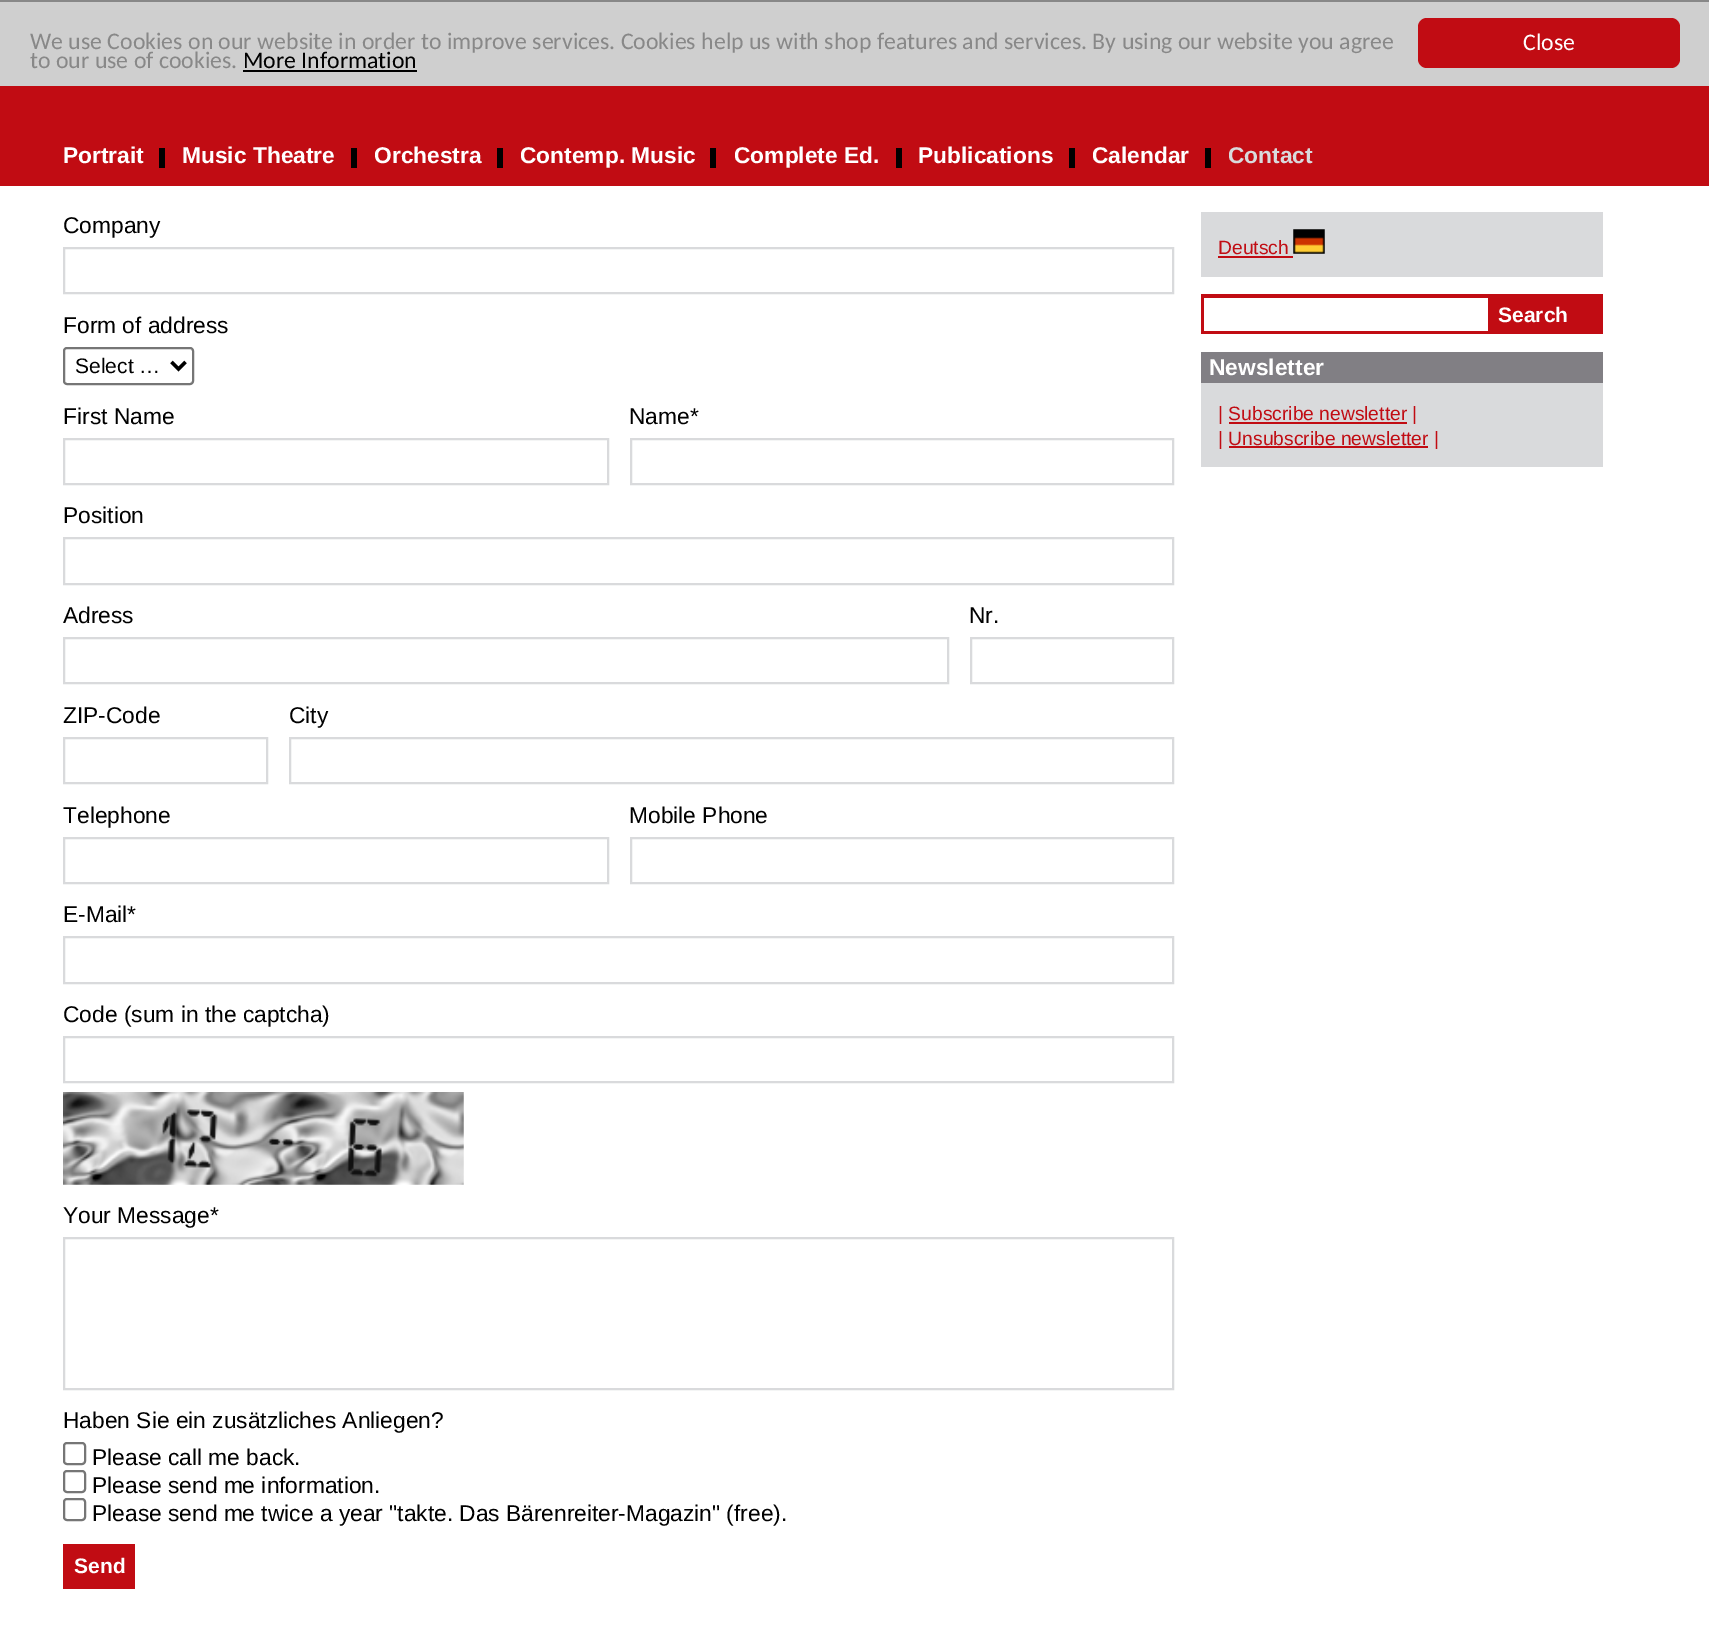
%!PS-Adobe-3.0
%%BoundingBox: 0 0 1709 1640
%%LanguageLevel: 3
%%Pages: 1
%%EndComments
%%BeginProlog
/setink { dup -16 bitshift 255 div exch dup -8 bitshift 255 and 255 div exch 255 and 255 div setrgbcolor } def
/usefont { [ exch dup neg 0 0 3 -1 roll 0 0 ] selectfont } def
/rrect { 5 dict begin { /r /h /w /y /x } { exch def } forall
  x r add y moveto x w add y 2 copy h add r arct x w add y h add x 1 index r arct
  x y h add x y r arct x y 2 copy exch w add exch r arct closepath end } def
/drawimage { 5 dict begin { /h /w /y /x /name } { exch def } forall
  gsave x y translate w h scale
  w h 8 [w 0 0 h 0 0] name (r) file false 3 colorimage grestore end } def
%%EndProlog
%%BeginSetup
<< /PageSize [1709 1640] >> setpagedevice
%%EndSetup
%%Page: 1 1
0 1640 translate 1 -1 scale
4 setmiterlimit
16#FFFFFF setink
0 0 1709 1640 rectfill
[
    [0 86 1709 100 16#C10C13]
    [0 2 1709 84 16#CFCFCF]
    [0 0 1709 2 16#888888]
] { aload pop setink rectfill } forall
/Carlito-Regular 23.8 usefont
30 49 moveto (We use Cookies on our website in order to improve services. Cookies help us with shop features and services. By using our website you agree) show
30 68 moveto (to our use of cookies.) show
16#000000 setink
243 68 moveto (More Information) show
243 70 174 2 rectfill
16#C10C13 setink
1418 18 262 50 9 rrect fill
16#FFFFFF setink
1523 50 moveto (Close) show
/LiberationSans-Bold 22.75 usefont
63 163 moveto (Portrait) show
16#000000 setink
159 148 6 20 rectfill
16#FFFFFF setink
182 163 moveto (Music Theatre) show
16#000000 setink
351 148 6 20 rectfill
16#FFFFFF setink
374 163 moveto (Orchestra) show
16#000000 setink
497 148 6 20 rectfill
16#FFFFFF setink
520 163 moveto (Contemp. Music) show
16#000000 setink
710 148 6 20 rectfill
16#FFFFFF setink
734 163 moveto (Complete Ed.) show
16#000000 setink
896 148 6 20 rectfill
16#FFFFFF setink
918 163 moveto (Publications) show
16#000000 setink
1069 148 6 20 rectfill
16#FFFFFF setink
1092 163 moveto (Calendar) show
16#000000 setink
1205 148 6 20 rectfill
16#D9DADC setink
1228 163 moveto (Contact) show
/LiberationSans-Regular 22.75 usefont
16#000000 setink
63 233 moveto (Company) show
16#D9DADC setink
2 setlinewidth
64 248 1109 45 rectstroke
16#000000 setink
63 333 moveto (Form of address) show
16#767676 setink
64 348 129 36 3 rrect stroke
16#000000 setink
3.5 setlinewidth
171.5 362 moveto 178.5 369 lineto 185.5 362 lineto stroke
/LiberationSans-Regular 21 usefont
75 373 moveto (Select …) show
/LiberationSans-Regular 22.75 usefont
63 424 moveto (First Name) show
16#D9DADC setink
2 setlinewidth
64 439 544 45 rectstroke
16#000000 setink
629 424 moveto (Name*) show
16#D9DADC setink
631 439 542 45 rectstroke
16#000000 setink
63 523 moveto (Position) show
16#D9DADC setink
64 538 1109 46 rectstroke
16#000000 setink
63 623 moveto (Adress) show
16#D9DADC setink
64 638 884 45 rectstroke
16#000000 setink
969 623 moveto (Nr.) show
16#D9DADC setink
971 638 202 45 rectstroke
16#000000 setink
63 723 moveto (ZIP-Code) show
16#D9DADC setink
64 738 203 45 rectstroke
16#000000 setink
289 723 moveto (City) show
16#D9DADC setink
290 738 883 45 rectstroke
16#000000 setink
63 823 moveto (Telephone) show
16#D9DADC setink
64 838 544 45 rectstroke
16#000000 setink
629 823 moveto (Mobile Phone) show
16#D9DADC setink
631 838 542 45 rectstroke
16#000000 setink
63 922 moveto (E-Mail*) show
16#D9DADC setink
64 937 1109 46 rectstroke
16#000000 setink
63 1022 moveto (Code \(sum in the captcha\)) show
16#D9DADC setink
64 1037 1109 45 rectstroke
(img1.raw) 63 1092 401 93 drawimage
16#000000 setink
63 1223 moveto (Your Message*) show
16#D9DADC setink
64 1238 1109 151 rectstroke
16#000000 setink
63 1428 moveto (Haben Sie ein zusätzliches Anliegen?) show
16#767676 setink
64 1443 21 21 3 rrect stroke
16#000000 setink
92 1465 moveto (Please call me back.) show
16#767676 setink
64 1471 21 21 3 rrect stroke
16#000000 setink
92 1493 moveto (Please send me information.) show
16#767676 setink
64 1499 21 21 3 rrect stroke
16#000000 setink
92 1521 moveto (Please send me twice a year "takte. Das Bärenreiter-Magazin" \(free\).) show
16#C10C13 setink
63 1544 72 45 rectfill
/LiberationSans-Bold 21 usefont
16#FFFFFF setink
74 1573 moveto (Send) show
16#D9DADC setink
1201 212 402 65 rectfill
/LiberationSans-Regular 19.25 usefont
16#C10C13 setink
1218 254 moveto (Deutsch) show
1218 256 75 2 rectfill
(img2.raw) 1293 229 32 25 drawimage
1201 294 402 40 rectfill
16#FFFFFF setink
1204 298 284 33 rectfill
/LiberationSans-Bold 21 usefont
1498 322 moveto (Search) show
16#D9DADC setink
1201 383 402 84 rectfill
16#817F84 setink
1201 352 402 31 rectfill
/LiberationSans-Bold 22.75 usefont
16#FFFFFF setink
1209 375 moveto (Newsletter) show
/LiberationSans-Regular 19.25 usefont
16#C10C13 setink
1218 420 moveto (| Subscribe newsletter |) show
1229 422 178 2 rectfill
1218 445 moveto (| Unsubscribe newsletter |) show
1229 446 199 2 rectfill
showpage
%%EOF
